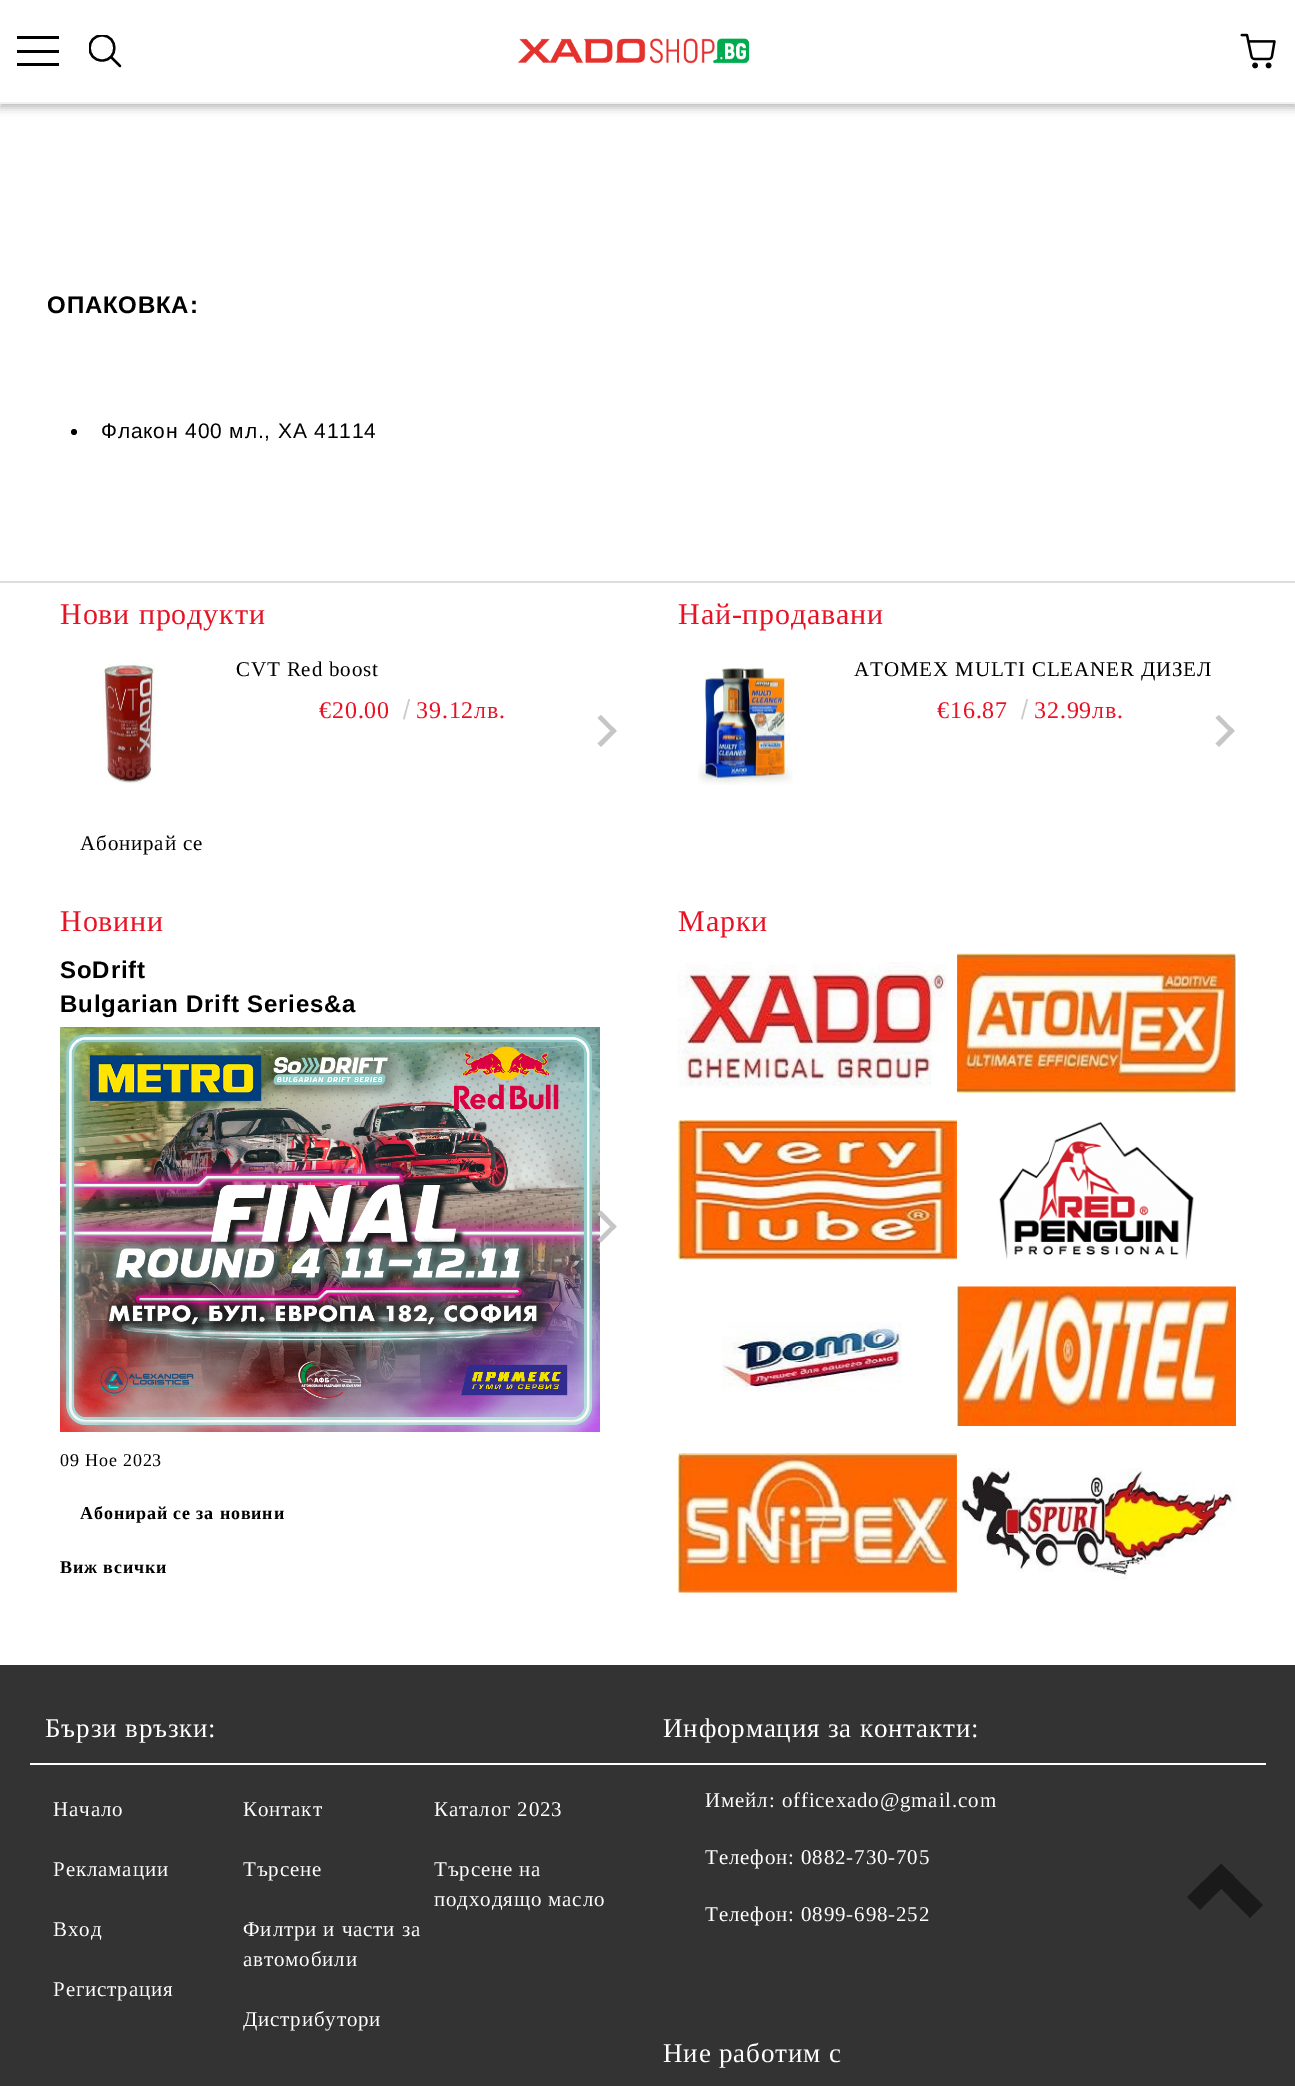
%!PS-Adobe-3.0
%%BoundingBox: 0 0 1295 2086
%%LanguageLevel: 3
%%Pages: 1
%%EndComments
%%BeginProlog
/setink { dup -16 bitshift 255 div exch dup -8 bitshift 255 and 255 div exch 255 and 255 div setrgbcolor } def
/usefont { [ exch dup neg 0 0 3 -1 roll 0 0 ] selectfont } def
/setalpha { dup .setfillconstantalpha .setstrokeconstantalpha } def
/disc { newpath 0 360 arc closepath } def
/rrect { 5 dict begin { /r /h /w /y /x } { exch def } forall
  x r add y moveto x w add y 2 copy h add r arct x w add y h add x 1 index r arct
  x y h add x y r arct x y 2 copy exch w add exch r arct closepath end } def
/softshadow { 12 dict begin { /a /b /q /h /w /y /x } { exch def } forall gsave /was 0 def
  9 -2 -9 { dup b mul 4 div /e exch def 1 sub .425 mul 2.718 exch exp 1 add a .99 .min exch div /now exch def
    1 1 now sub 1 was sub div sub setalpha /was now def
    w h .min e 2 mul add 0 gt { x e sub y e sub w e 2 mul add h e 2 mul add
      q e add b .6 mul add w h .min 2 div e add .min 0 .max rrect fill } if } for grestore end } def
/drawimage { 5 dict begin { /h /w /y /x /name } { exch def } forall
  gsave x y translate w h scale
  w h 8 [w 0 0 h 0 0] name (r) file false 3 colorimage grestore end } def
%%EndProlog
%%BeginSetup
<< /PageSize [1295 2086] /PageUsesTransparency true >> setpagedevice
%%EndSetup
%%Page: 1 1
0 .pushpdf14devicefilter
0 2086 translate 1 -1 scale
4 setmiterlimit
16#FFFFFF setink
0 0 1295 2086 rectfill
16#000000 setink
0 5 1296 103 0 4 0.25 softshadow
[
    [0 102 1295 2 16#F1F1F1]
    [0 0 1295 102 16#FFFFFF]
    [17 36 42 3 16#000000]
    [17 50 42 3 16#000000]
    [17 63 42 3 16#000000]
] { aload pop setink rectfill } forall
gsave
89 35 33 33 rectclip
2.3 setlinewidth
102 35.5 moveto 85.5 35.5 85.5 60.5 102 60.5 curveto 118.5 60.5 118.5 35.5 102 35.5 curveto closepath stroke
grestore
2.3 setlinewidth
1 setlinecap
111 57 moveto 120 66 lineto stroke
(img1.raw) 518 38 232 26 drawimage
(img2.raw) 1240 33 36 36 drawimage
/LiberationSans-Bold 24 usefont
47 313 moveto 0.85 0 (ОПАКОВКА:) ashow
74 432 3 disc fill
/LiberationSans-Regular 21 usefont
101 438 moveto 0.85 0 (Флакон 400 мл., XA 41114) ashow
16#DDDDDD setink
0 581 1295 2 rectfill
/LiberationSerif-Regular 30 usefont
16#E81225 setink
60 624 moveto 0.85 0 (Нови продукти) ashow
(img3.raw) 103 664 52 120 drawimage
/LiberationSerif-Regular 21 usefont
16#000000 setink
236 676 moveto 0.85 0 (CVT Red boost) ashow
/LiberationSerif-Regular 24 usefont
16#E81225 setink
319 718 moveto 0.85 0 (€20.00) ashow
16#CBCBCB setink
408.5 699 moveto 410 699 lineto 404.5 719.5 lineto 403 719 lineto closepath fill
16#E81225 setink
416 718 moveto 0.85 0 (39.12лв.) ashow
16#C6C6C6 setink
597.5 718 moveto 601 715 lineto 616.5 731 lineto 613.5 734 lineto closepath fill
597.5 743.5 moveto 613.5 727.5 lineto 616.5 731 lineto 601 747 lineto closepath fill
/LiberationSerif-Regular 21 usefont
16#000000 setink
80 850 moveto 0.85 0 (Абонирай се) ashow
/LiberationSerif-Regular 30 usefont
16#E81225 setink
678 624 moveto 0.85 0 (Най-продавани) ashow
(img4.raw) 698 667 95 118 drawimage
/LiberationSerif-Regular 21 usefont
16#000000 setink
854 676 moveto 0.85 0 (ATOMEX MULTI CLEANER ДИЗЕЛ) ashow
/LiberationSerif-Regular 24 usefont
16#E81225 setink
937 718 moveto 0.85 0 (€16.87) ashow
16#CBCBCB setink
1026.5 699 moveto 1028 699 lineto 1022.5 719.5 lineto 1021 719 lineto closepath fill
16#E81225 setink
1034 718 moveto 0.85 0 (32.99лв.) ashow
16#C6C6C6 setink
1215.5 718 moveto 1219 715 lineto 1234.5 731 lineto 1231.5 734 lineto closepath fill
1215.5 743.5 moveto 1231.5 727.5 lineto 1234.5 731 lineto 1219 747 lineto closepath fill
/LiberationSerif-Regular 30 usefont
16#E81225 setink
60 931 moveto 0.85 0 (Новини) ashow
/LiberationSans-Bold 24 usefont
16#000000 setink
60 978 moveto 0.85 0 (SoDrift) ashow
60 1012 moveto 0.85 0 (Bulgarian Drift Series&a) ashow
(img5.raw) 60 1027 540 405 drawimage
/LiberationSerif-Regular 18 usefont
60 1466 moveto 0.85 0 (09 Ное 2023) ashow
16#C6C6C6 setink
597.5 1214 moveto 601 1210.5 lineto 616.5 1226.5 lineto 613.5 1230 lineto closepath fill
597.5 1239.5 moveto 613.5 1223.5 lineto 616.5 1226.5 lineto 601 1242.5 lineto closepath fill
/LiberationSerif-Bold 18 usefont
16#000000 setink
80 1519 moveto 0.85 0 (Абонирай се за новини) ashow
60 1573 moveto 0.85 0 (Виж всички) ashow
/LiberationSerif-Regular 30 usefont
16#E81225 setink
678 931 moveto 0.85 0 (Марки) ashow
(img6.raw) 678 962 268 126 drawimage
(img7.raw) 957 953 279 140 drawimage
(img8.raw) 678 1120 279 140 drawimage
(img9.raw) 999 1121 195 138 drawimage
(img10.raw) 722 1322 180 69 drawimage
(img11.raw) 957 1286 279 140 drawimage
(img12.raw) 678 1453 279 140 drawimage
(img13.raw) 957 1468 279 112 drawimage
16#333333 setink
0 1665 1295 421 rectfill
16#FFFFFF setink
30 1763 1236 2 rectfill
/LiberationSerif-Regular 27 usefont
45 1737 moveto 0.85 0 (Бързи връзки:) ashow
/LiberationSerif-Regular 21 usefont
53 1816 moveto 0.85 0 (Начало) ashow
53 1876 moveto 0.85 0 (Рекламации) ashow
53 1936 moveto 0.85 0 (Вход) ashow
53 1996 moveto 0.85 0 (Регистрация) ashow
243 1816 moveto 0.85 0 (Контакт) ashow
243 1876 moveto 0.85 0 (Търсене) ashow
243 1936 moveto 0.85 0 (Филтри и части за) ashow
243 1966 moveto 0.85 0 (автомобили) ashow
243 2026 moveto 0.85 0 (Дистрибутори) ashow
434 1816 moveto 0.85 0 (Каталог 2023) ashow
434 1876 moveto 0.85 0 (Търсене на) ashow
434 1906 moveto 0.85 0 (подходящо масло) ashow
/LiberationSerif-Regular 27 usefont
663 1737 moveto 0.85 0 (Информация за контакти:) ashow
/LiberationSerif-Regular 21 usefont
705 1807 moveto 0.85 0 (Имейл: officexado@gmail.com) ashow
705 1864 moveto 0.85 0 (Телефон: 0882-730-705) ashow
705 1921 moveto 0.85 0 (Телефон: 0899-698-252) ashow
/LiberationSerif-Regular 27 usefont
663 2062 moveto 0.85 0 (Ние работим с) ashow
16#1A1A1A setink
1200 1910 moveto 1187 1897 lineto 1221 1864 lineto 1234 1876 lineto closepath fill
1250 1918 moveto 1209 1876 lineto 1221 1864 lineto 1263 1905 lineto closepath fill
.poppdf14devicefilter showpage
%%EOF
